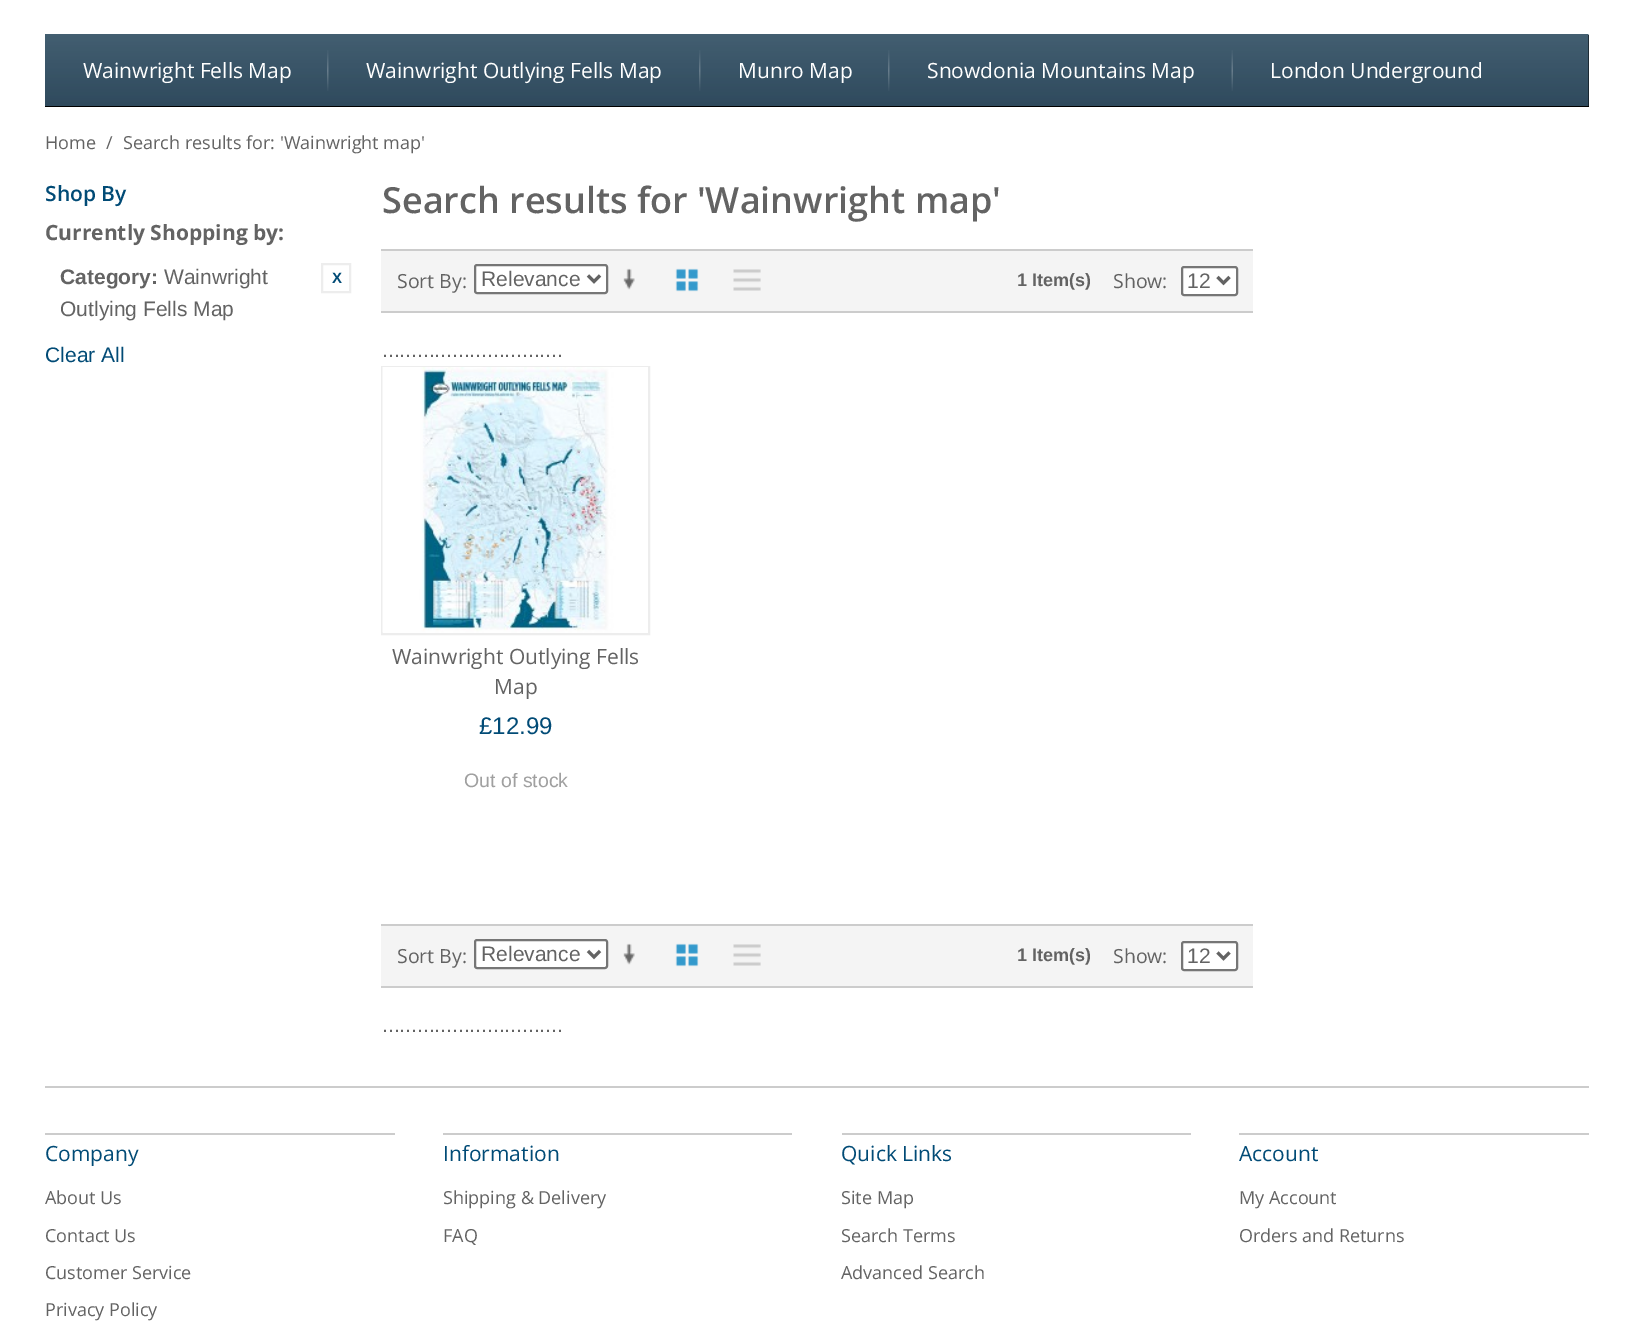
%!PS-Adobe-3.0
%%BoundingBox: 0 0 1633 1324
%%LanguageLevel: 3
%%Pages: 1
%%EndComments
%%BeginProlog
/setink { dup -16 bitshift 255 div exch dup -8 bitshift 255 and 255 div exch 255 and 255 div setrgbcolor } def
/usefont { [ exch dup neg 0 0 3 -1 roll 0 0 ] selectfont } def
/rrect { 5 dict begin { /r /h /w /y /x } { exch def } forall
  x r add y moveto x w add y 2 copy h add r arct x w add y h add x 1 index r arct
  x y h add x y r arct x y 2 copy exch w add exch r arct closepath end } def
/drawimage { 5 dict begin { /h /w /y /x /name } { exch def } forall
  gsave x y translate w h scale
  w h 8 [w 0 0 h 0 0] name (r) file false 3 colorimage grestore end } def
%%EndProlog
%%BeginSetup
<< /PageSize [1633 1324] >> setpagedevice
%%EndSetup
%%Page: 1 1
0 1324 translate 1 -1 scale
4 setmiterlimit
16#FFFFFF setink
0 0 1633 1324 rectfill
16#000000 setink
45 35 1544 72 rectfill
(img1.raw) 45 34 1544 72 drawimage
(img2.raw) 327 50 2 41 drawimage
/OpenSans-Regular 21 usefont
16#FFFFFF setink
83 78 moveto (Wainwright Fells Map) show
(img2.raw) 699 50 2 41 drawimage
366 78 moveto (Wainwright Outlying Fells Map) show
(img2.raw) 888 50 2 41 drawimage
738 78 moveto (Munro Map) show
(img3.raw) 1231 50 2 41 drawimage
927 78 moveto (Snowdonia Mountains Map) show
1270 78 moveto (London Underground) show
/OpenSans-Regular 18 usefont
16#636363 setink
[
    [(Home) 45 149]
    [(/) 106 149]
    [(Search results for: 'Wainwright map') 123 149]
] { aload pop moveto show } forall
/OpenSans-SemiBold 21 usefont
16#014B76 setink
45 201 moveto (Shop By) show
/OpenSans-Bold 21 usefont
16#636363 setink
45 240 moveto (Currently Shopping by:) show
/LiberationSans-Bold 21 usefont
60 284 moveto (Category:) show
/LiberationSans-Regular 21 usefont
164 284 moveto (Wainwright) show
16#EDEDED setink
2 setlinewidth
322 264 28 28 rectstroke
/LiberationSans-Bold 15 usefont
16#014B76 setink
332 283 moveto (X) show
/LiberationSans-Regular 21 usefont
16#636363 setink
60 316 moveto (Outlying Fells Map) show
16#014B76 setink
45 362 moveto (Clear All) show
/OpenSans-SemiBold 36 usefont
16#636363 setink
382 213 moveto (Search results for 'Wainwright map') show
[
    [381 251 872 60 16#F4F4F4]
    [381 249 872 2 16#CCCCCC]
    [381 311 872 2 16#CCCCCC]
] { aload pop setink rectfill } forall
/OpenSans-Regular 19.5 usefont
16#636363 setink
397 288 moveto (Sort By:) show
16#FFFFFF setink
475 265 132 28 2 rrect gsave fill grestore
16#767676 setink
stroke
16#636363 setink
3 setlinewidth
588 275.5 moveto 594 281.5 lineto 600 275.5 lineto stroke
/LiberationSans-Regular 21 usefont
481 286 moveto (Relevance) show
(img4.raw) 623 268 12 22 drawimage
(img5.raw) 675 268 24 24 drawimage
(img6.raw) 733 269 28 22 drawimage
/LiberationSans-Bold 18 usefont
1017 286 moveto (1 Item\(s\)) show
/OpenSans-Regular 19.5 usefont
1113 288 moveto (Show:) show
16#FFFFFF setink
1182 267 55 28 2 rrect gsave fill grestore
16#767676 setink
2 setlinewidth
stroke
16#636363 setink
3 setlinewidth
1217.5 277 moveto 1223.5 283 lineto 1229.5 277 lineto stroke
/LiberationSans-Regular 21 usefont
1187 288 moveto (12) show
382 357 moveto (...............................) show
16#EDEDED setink
2 setlinewidth
382 367 267 267 rectstroke
(img7.raw) 382 367 266 266 drawimage
/OpenSans-Regular 21 usefont
16#636363 setink
392 664 moveto (Wainwright Outlying Fells) show
494 694 moveto (Map) show
/LiberationSans-Regular 24 usefont
16#014B76 setink
479 734 moveto (£12.99) show
/LiberationSans-Regular 19.5 usefont
16#A0A0A0 setink
464 787 moveto (Out of stock) show
[
    [381 926 872 60 16#F4F4F4]
    [381 924 872 2 16#CCCCCC]
    [381 986 872 2 16#CCCCCC]
] { aload pop setink rectfill } forall
/OpenSans-Regular 19.5 usefont
16#636363 setink
397 963 moveto (Sort By:) show
16#FFFFFF setink
475 940 132 28 2 rrect gsave fill grestore
16#767676 setink
stroke
16#636363 setink
3 setlinewidth
588 951 moveto 594 957 lineto 600 951 lineto stroke
/LiberationSans-Regular 21 usefont
481 961 moveto (Relevance) show
(img4.raw) 623 943 12 22 drawimage
(img5.raw) 675 943 24 24 drawimage
(img6.raw) 733 944 28 22 drawimage
/LiberationSans-Bold 18 usefont
1017 961 moveto (1 Item\(s\)) show
/OpenSans-Regular 19.5 usefont
1113 963 moveto (Show:) show
16#FFFFFF setink
1182 942 55 28 2 rrect gsave fill grestore
16#767676 setink
2 setlinewidth
stroke
16#636363 setink
3 setlinewidth
1217.5 952.5 moveto 1223.5 958.5 lineto 1229.5 952.5 lineto stroke
/LiberationSans-Regular 21 usefont
1187 963 moveto (12) show
382 1032 moveto (...............................) show
16#CCCCCC setink
45 1086 1544 2 rectfill
45 1133 350 2 rectfill
/OpenSans-Regular 21 usefont
16#014B76 setink
45 1161 moveto (Company) show
/OpenSans-Regular 18 usefont
16#636363 setink
[
    [(About Us) 45 1204]
    [(Contact Us) 45 1242]
    [(Customer Service) 45 1279]
    [(Privacy Policy) 45 1316]
] { aload pop moveto show } forall
16#CCCCCC setink
443 1133 349 2 rectfill
/OpenSans-Regular 21 usefont
16#014B76 setink
443 1161 moveto (Information) show
/OpenSans-Regular 18 usefont
16#636363 setink
443 1204 moveto (Shipping & Delivery) show
443 1242 moveto (FAQ) show
16#CCCCCC setink
842 1133 349 2 rectfill
/OpenSans-Regular 21 usefont
16#014B76 setink
841 1161 moveto (Quick Links) show
/OpenSans-Regular 18 usefont
16#636363 setink
[
    [(Site Map) 841 1204]
    [(Search Terms) 841 1242]
    [(Advanced Search) 841 1279]
] { aload pop moveto show } forall
16#CCCCCC setink
1239 1133 350 2 rectfill
/OpenSans-Regular 21 usefont
16#014B76 setink
1239 1161 moveto (Account) show
/OpenSans-Regular 18 usefont
16#636363 setink
1239 1204 moveto (My Account) show
1239 1242 moveto (Orders and Returns) show
showpage
%%EOF
